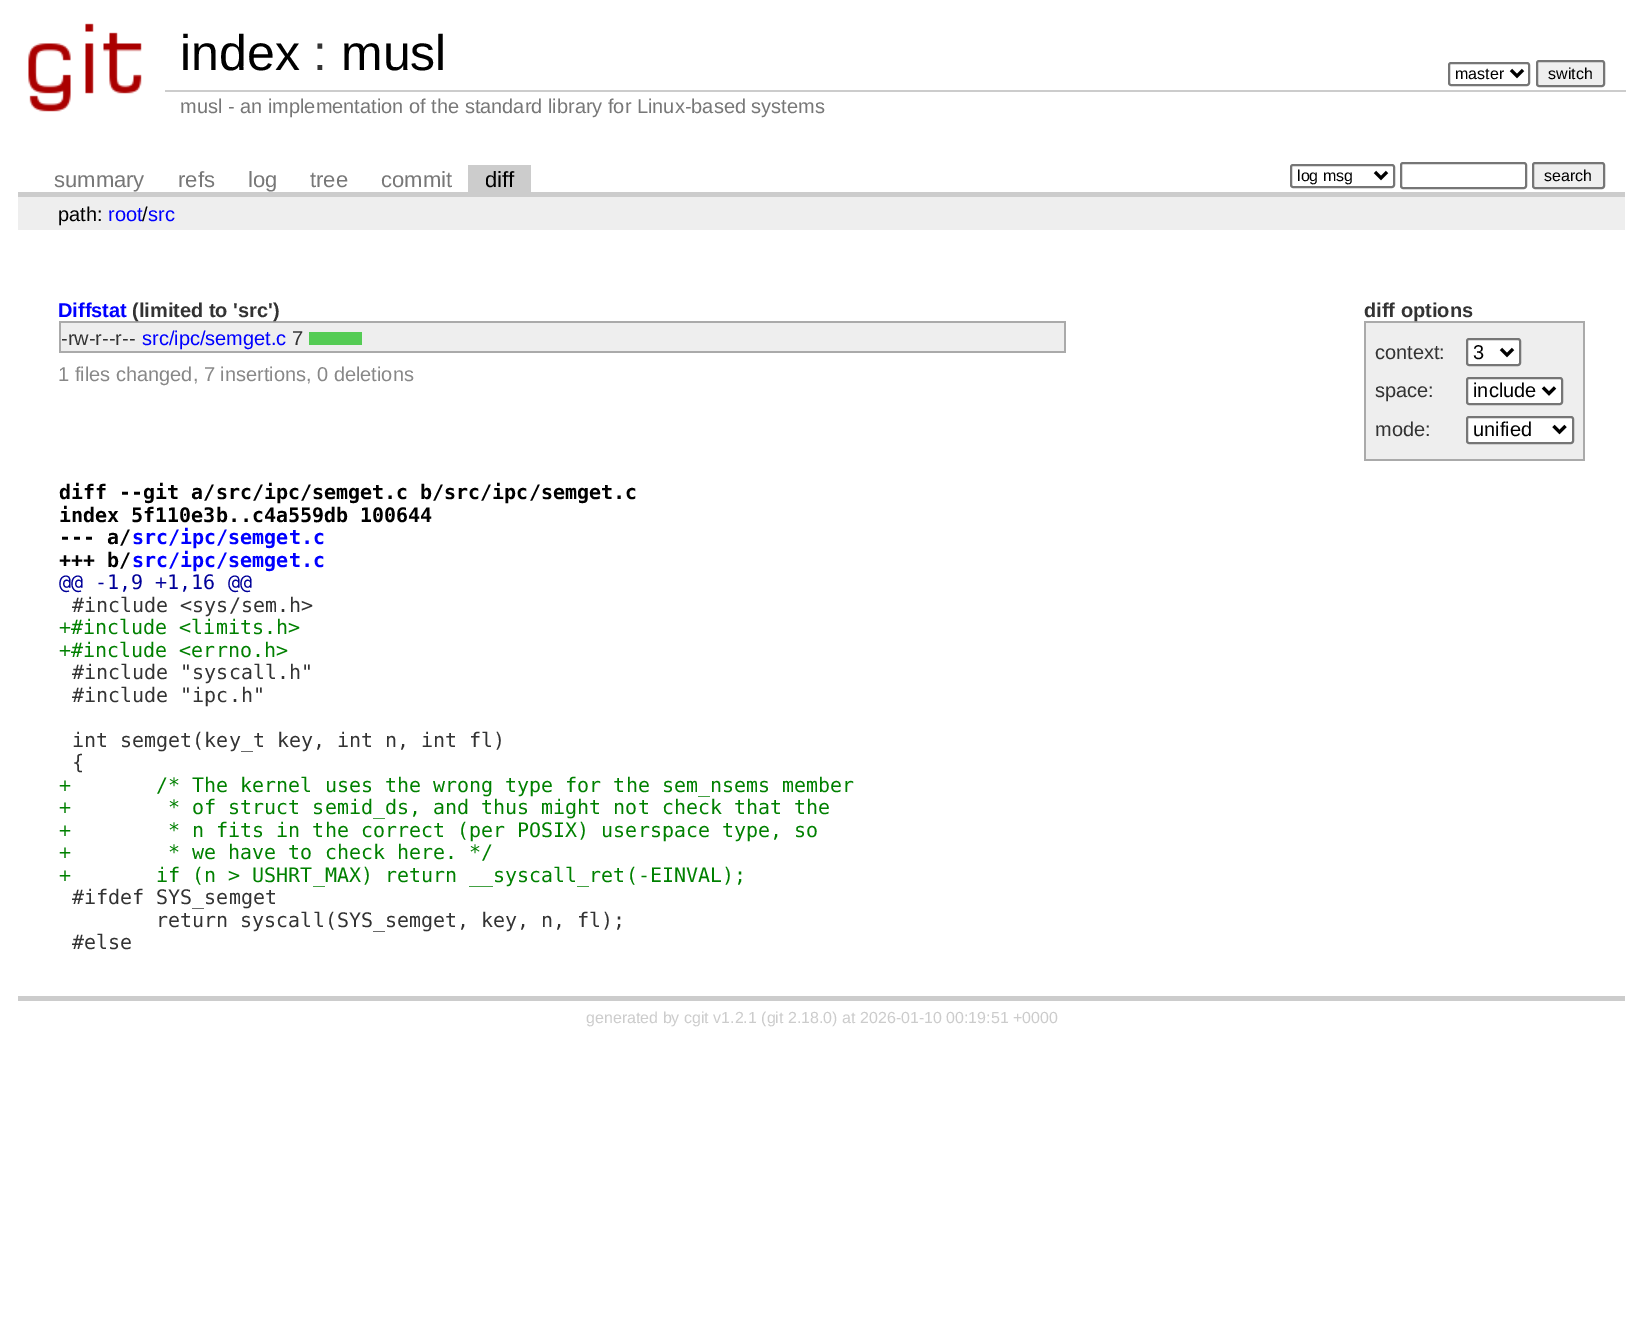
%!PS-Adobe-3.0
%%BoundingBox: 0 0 1642 1330
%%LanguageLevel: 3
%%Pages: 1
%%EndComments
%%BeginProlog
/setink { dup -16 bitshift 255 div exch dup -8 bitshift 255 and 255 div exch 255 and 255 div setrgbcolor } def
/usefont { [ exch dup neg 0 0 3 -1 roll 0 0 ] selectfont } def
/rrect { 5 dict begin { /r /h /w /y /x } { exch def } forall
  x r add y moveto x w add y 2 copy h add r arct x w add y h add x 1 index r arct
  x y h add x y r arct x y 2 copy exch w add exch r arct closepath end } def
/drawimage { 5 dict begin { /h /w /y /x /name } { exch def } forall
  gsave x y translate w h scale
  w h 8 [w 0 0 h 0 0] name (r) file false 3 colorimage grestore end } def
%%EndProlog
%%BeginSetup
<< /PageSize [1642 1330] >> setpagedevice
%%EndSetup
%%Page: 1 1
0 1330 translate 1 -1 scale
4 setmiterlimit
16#FFFFFF setink
0 0 1642 1330 rectfill
(img1.raw) 28 23 114 89 drawimage
/LiberationSans-Regular 50 usefont
16#000000 setink
180 70 moveto (index) show
16#333333 setink
313 70 moveto (:) show
16#000000 setink
341 70 moveto (musl) show
16#767676 setink
2 setlinewidth
1449 63 80 22 2 rrect stroke
16#000000 setink
3 setlinewidth
1511 70 moveto 1517 76 lineto 1523 70 lineto stroke
/LiberationSans-Regular 16 usefont
1455 79 moveto (master) show
16#EFEFEF setink
1537 61 67 25 2 rrect gsave fill grestore
16#767676 setink
2 setlinewidth
stroke
16#000000 setink
1548 79 moveto (switch) show
16#CCCCCC setink
165 90 1461 2 rectfill
/LiberationSans-Regular 20 usefont
16#777777 setink
180 113 moveto (musl - an implementation of the standard library for Linux-based systems) show
16#CCCCCC setink
18 192 1607 5 rectfill
/LiberationSans-Regular 22 usefont
16#777777 setink
[
    [(summary) 54 187]
    [(refs) 178 187]
    [(log) 248 187]
    [(tree) 310 187]
    [(commit) 381 187]
] { aload pop moveto show } forall
16#CCCCCC setink
468 165 63 27 rectfill
16#000000 setink
485 187 moveto (diff) show
16#767676 setink
1291 165 103 22 2 rrect stroke
16#000000 setink
3 setlinewidth
1375 172 moveto 1381 178 lineto 1387 172 lineto stroke
gsave
1298 165 72 21 rectclip
/LiberationSans-Regular 16 usefont
1297 181 moveto (log msg) show
grestore
16#767676 setink
2 setlinewidth
1401 163 125 25 2 rrect stroke
16#EFEFEF setink
1533 163 71 25 2 rrect gsave fill grestore
16#767676 setink
stroke
/LiberationSans-Regular 16 usefont
16#000000 setink
1544 181 moveto (search) show
16#EEEEEE setink
18 197 1607 33 rectfill
/LiberationSans-Regular 20 usefont
16#000000 setink
58 221 moveto (path:) show
16#0000FF setink
108 221 moveto (root src) show
16#000000 setink
142 221 moveto (/) show
16#CCCCCC setink
18 996 1607 5 rectfill
/LiberationSans-Bold 20 usefont
16#0000FF setink
58 317 moveto (Diffstat) show
16#AAAAAA setink
59 321 1006 2 rectfill
16#333333 setink
132 317 moveto (\(limited to 'src'\)) show
[
    [1364 321 220 2 16#AAAAAA]
    [1583 321 2 140 16#AAAAAA]
    [1364 459 220 2 16#AAAAAA]
    [1364 321 2 140 16#AAAAAA]
] { aload pop setink rectfill } forall
16#333333 setink
1364 317 moveto (diff options) show
16#EEEEEE setink
1366 323 217 136 rectfill
/LiberationSans-Regular 20 usefont
16#333333 setink
1375 359 moveto (context:) show
16#FFFFFF setink
1467 339 53 26 2 rrect gsave fill grestore
16#767676 setink
stroke
16#000000 setink
3 setlinewidth
1501 349 moveto 1507 355 lineto 1513 349 lineto stroke
1473 359 moveto (3) show
16#333333 setink
1375 397 moveto (space:) show
16#FFFFFF setink
1467 378 95 26 2 rrect gsave fill grestore
16#767676 setink
2 setlinewidth
stroke
16#000000 setink
3 setlinewidth
1543 387.5 moveto 1549 393.5 lineto 1555 387.5 lineto stroke
1473 397 moveto (include) show
16#333333 setink
1375 436 moveto (mode:) show
16#FFFFFF setink
1467 417 106 26 2 rrect gsave fill grestore
16#767676 setink
2 setlinewidth
stroke
16#000000 setink
3 setlinewidth
1553.5 426 moveto 1559.5 432 lineto 1565.5 426 lineto stroke
1473 436 moveto (unified) show
[
    [61 323 1003 28 16#EEEEEE]
    [1064 321 2 32 16#AAAAAA]
    [59 351 1006 2 16#AAAAAA]
    [59 321 2 32 16#AAAAAA]
] { aload pop setink rectfill } forall
16#333333 setink
61 345 moveto (-rw-r--r--) show
16#0000FF setink
142 345 moveto (src/ipc/semget.c) show
16#333333 setink
292 345 moveto (7) show
16#55CC55 setink
309 332 53 13 rectfill
16#888888 setink
58 381 moveto (1 files changed, 7 insertions, 0 deletions) show
/DejaVuSansMono-Bold 20 usefont
16#000000 setink
[
    [(diff --git a/src/ipc/semget.c b/src/ipc/semget.c) 59 499]
    [(index 5f110e3b..c4a559db 100644) 59 522]
    [(--- a/) 59 544]
] { aload pop moveto show } forall
16#0000FF setink
132 544 moveto (src/ipc/semget.c) show
16#000000 setink
59 567 moveto (+++ b/) show
16#0000FF setink
132 567 moveto (src/ipc/semget.c) show
/DejaVuSansMono-Regular 20 usefont
16#000099 setink
59 589 moveto (@@ -1,9 +1,16 @@) show
16#333333 setink
72 612 moveto (#include <sys/sem.h>) show
16#008000 setink
59 634 moveto (+#include <limits.h>) show
59 657 moveto (+#include <errno.h>) show
16#333333 setink
[
    [(#include "syscall.h") 72 679]
    [(#include "ipc.h") 72 702]
    [(int semget\(key_t key, int n, int fl\)) 72 747]
    [({) 72 769]
] { aload pop moveto show } forall
16#008000 setink
[
    [(+) 59 792]
    [(/* The kernel uses the wrong type for the sem_nsems member) 156 792]
    [(+) 59 814]
    [(* of struct semid_ds, and thus might not check that the) 168 814]
    [(+) 59 837]
    [(* n fits in the correct \(per POSIX\) userspace type, so) 168 837]
    [(+) 59 859]
    [(* we have to check here. */) 168 859]
    [(+) 59 882]
    [(if \(n > USHRT_MAX\) return __syscall_ret\(-EINVAL\);) 156 882]
] { aload pop moveto show } forall
16#333333 setink
[
    [(#ifdef SYS_semget) 72 904]
    [(return syscall\(SYS_semget, key, n, fl\);) 156 927]
    [(#else) 72 949]
] { aload pop moveto show } forall
/LiberationSans-Regular 16 usefont
16#CCCCCC setink
586 1023 moveto (generated by cgit v1.2.1 \(git 2.18.0\) at 2026-01-10 00:19:51 +0000) show
showpage
%%EOF
